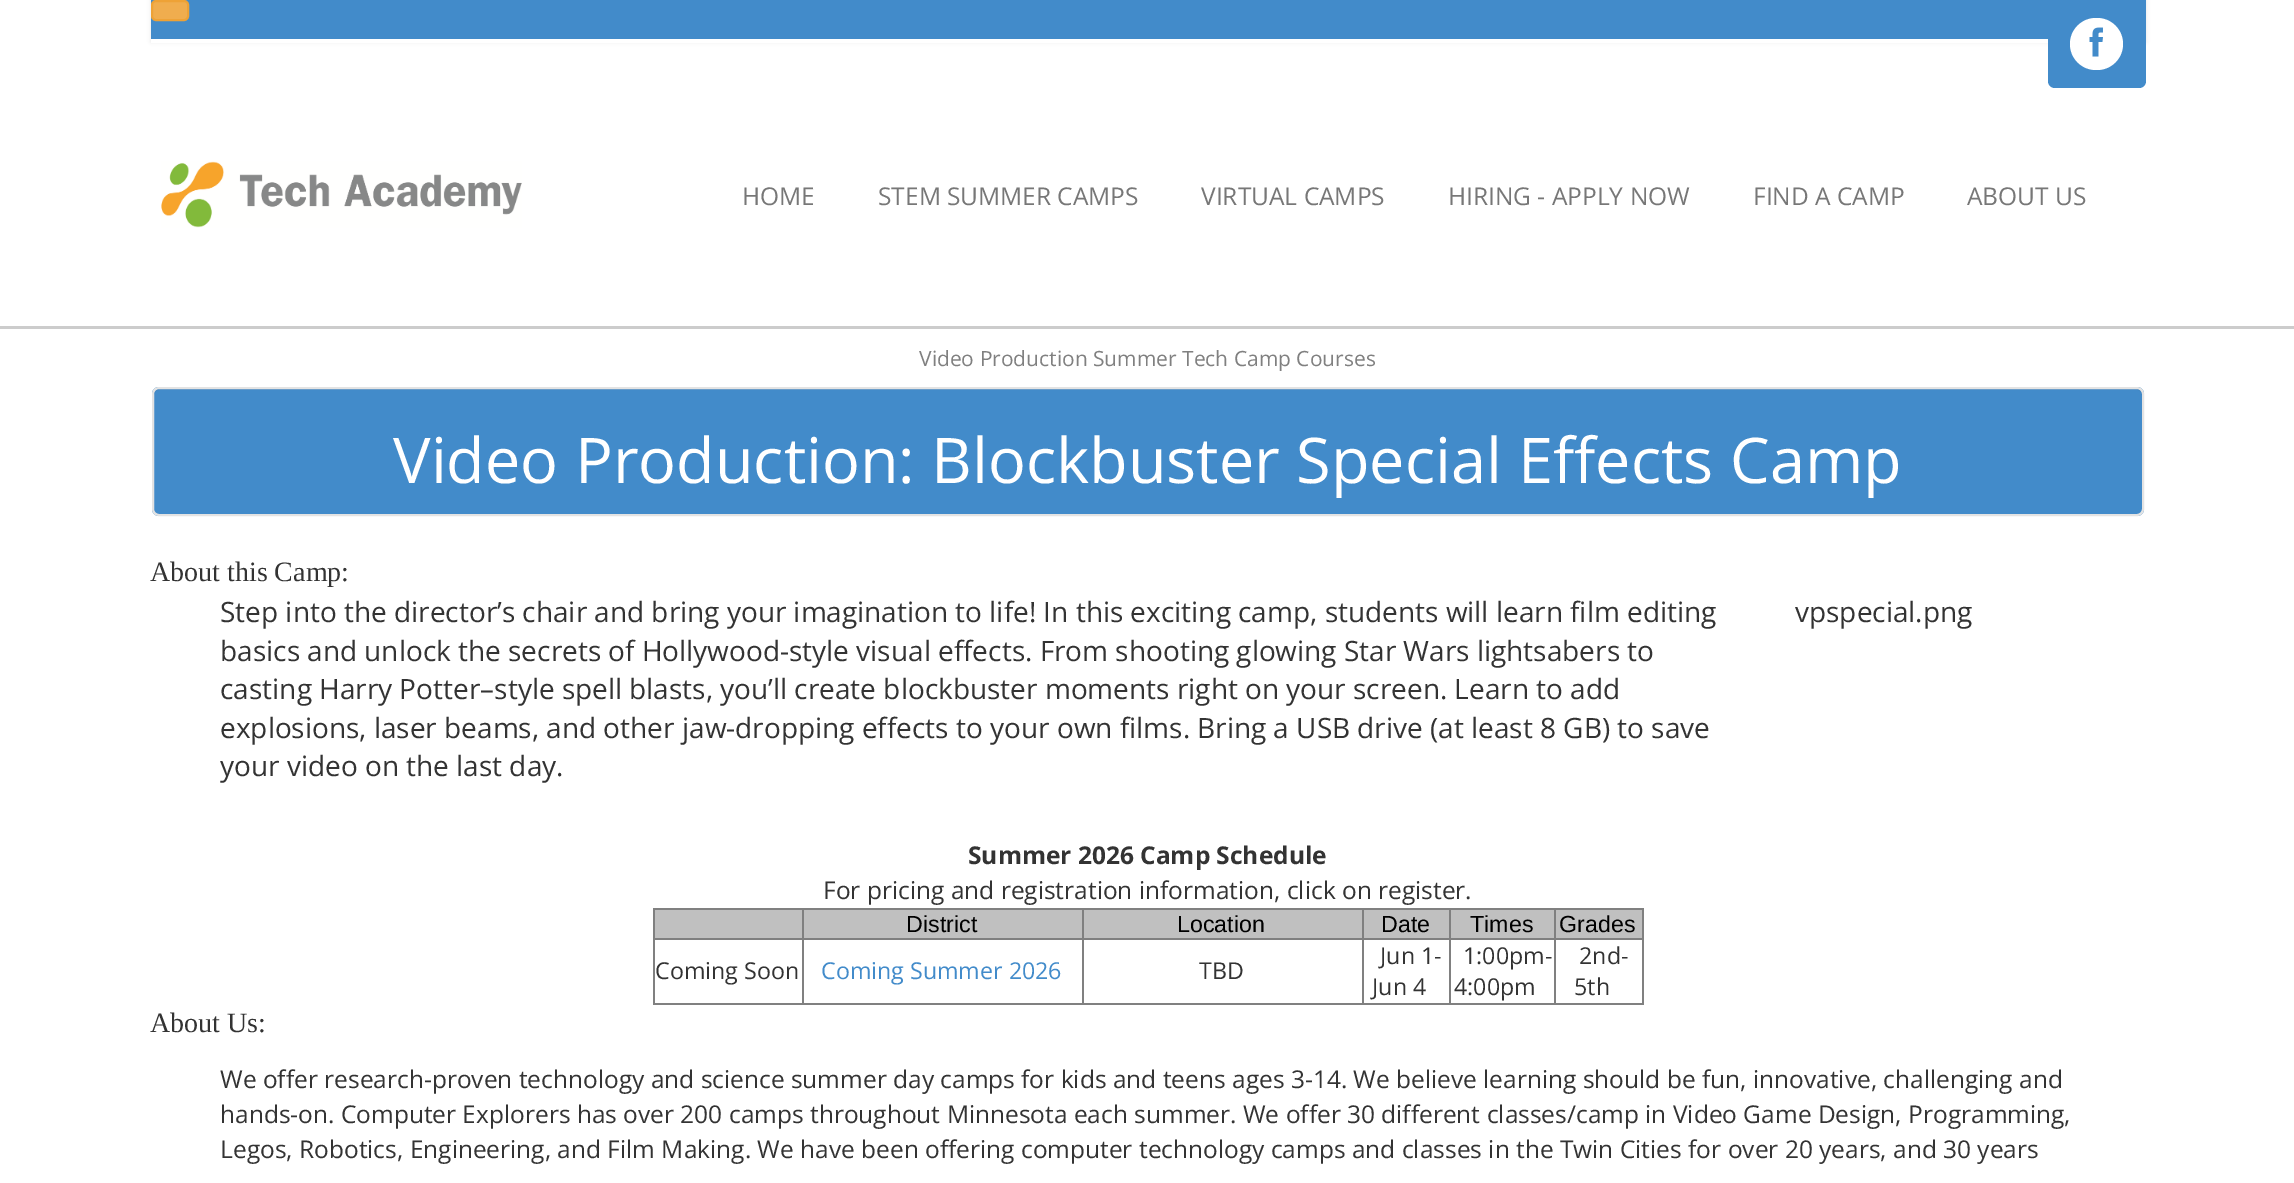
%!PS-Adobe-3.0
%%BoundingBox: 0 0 2294 1183
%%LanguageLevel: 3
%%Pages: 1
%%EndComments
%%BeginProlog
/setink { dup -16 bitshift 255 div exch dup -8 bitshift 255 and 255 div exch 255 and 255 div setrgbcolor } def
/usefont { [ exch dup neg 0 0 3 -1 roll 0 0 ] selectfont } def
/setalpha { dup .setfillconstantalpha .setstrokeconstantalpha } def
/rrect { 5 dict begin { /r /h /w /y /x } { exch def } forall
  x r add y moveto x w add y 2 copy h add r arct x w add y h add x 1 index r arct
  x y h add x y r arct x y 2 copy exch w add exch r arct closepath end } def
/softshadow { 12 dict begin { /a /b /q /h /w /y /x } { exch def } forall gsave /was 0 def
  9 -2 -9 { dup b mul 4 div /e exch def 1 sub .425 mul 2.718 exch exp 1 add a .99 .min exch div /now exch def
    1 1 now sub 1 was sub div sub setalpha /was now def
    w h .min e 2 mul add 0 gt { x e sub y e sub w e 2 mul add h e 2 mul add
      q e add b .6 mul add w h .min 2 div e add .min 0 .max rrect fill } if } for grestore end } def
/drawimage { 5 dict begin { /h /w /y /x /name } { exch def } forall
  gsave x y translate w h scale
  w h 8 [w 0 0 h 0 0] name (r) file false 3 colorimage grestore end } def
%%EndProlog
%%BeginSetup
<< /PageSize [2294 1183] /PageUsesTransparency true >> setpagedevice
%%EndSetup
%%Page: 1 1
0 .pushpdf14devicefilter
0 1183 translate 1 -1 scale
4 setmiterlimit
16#FFFFFF setink
0 0 2294 1183 rectfill
16#CCCCCC setink
0 326 2294 3 rectfill
16#000000 setink
151 0 1995 42 0 2 0.1 softshadow
16#428BCA setink
151 0 1897 39 rectfill
16#FFFFFF setink
151 39 1897 4 rectfill
16#F0AD4E setink
152 1 36 19 4 rrect gsave fill grestore
16#EEA236 setink
2 setlinewidth
stroke
16#428BCA setink
2048 0 moveto 2146 0 lineto 2146 81 lineto 2146 85 2143 88 2139 88 curveto 2055 88 lineto 2051 88 2048 85 2048 81 curveto closepath fill
16#FFFFFF setink
2070 18 53 52 26 rrect fill
(img1.raw) 2089 27 14 30 drawimage
(img2.raw) 161 161 361 67 drawimage
/OpenSans-Regular 24.5 usefont
16#777777 setink
[
    [(HOME) 742 205]
    [(STEM SUMMER CAMPS) 878 205]
    [(VIRTUAL CAMPS) 1201 205]
    [(HIRING - APPLY NOW) 1448 205]
    [(FIND A CAMP) 1753 205]
    [(ABOUT US) 1967 205]
] { aload pop moveto show } forall
/OpenSans-Regular 21 usefont
16#808080 setink
919 366 moveto (Video Production Summer Tech Camp Courses) show
16#428BCA setink
152 387 1992 129 7 rrect fill
16#3F84C0 setink
159 390 moveto 2137 390 lineto 2140 390 2142 393 2142 396 curveto 2142 394 lineto 2142 391 2140 389 2137 389 curveto 159 389 lineto 156 389 154 391 154 394 curveto 154 396 lineto 154 393 156 390 159 390 curveto closepath fill
16#E3E3E3 setink
153 388 1990 127 6 rrect stroke
/OpenSans-Regular 63 usefont
16#FFFFFF setink
393 483 moveto (Video Production: Blockbuster Special Effects Camp) show
/LiberationSerif-Regular 28 usefont
16#333333 setink
150 581 moveto (About this Camp:) show
/OpenSans-Regular 28 usefont
[
    [(Step into the director’s chair and bring your imagination to life! In this exciting camp, students will learn film editing) 220 622]
    [(basics and unlock the secrets of Hollywood-style visual effects. From shooting glowing Star Wars lightsabers to) 220 661]
    [(casting Harry Potter–style spell blasts, you’ll create blockbuster moments right on your screen. Learn to add) 220 699]
    [(explosions, laser beams, and other jaw-dropping effects to your own films. Bring a USB drive \(at least 8 GB\) to save) 220 738]
    [(your video on the last day.) 220 776]
    [(vpspecial.png) 1795 622]
] { aload pop moveto show } forall
/OpenSans-Bold 24.5 usefont
968 864 moveto (Summer 2026 Camp Schedule) show
/OpenSans-Regular 24.5 usefont
823 899 moveto (For pricing and registration information, click on register.) show
[
    [653 908 990 2 16#808080]
    [1642 908 2 97 16#808080]
    [653 1003 990 2 16#808080]
    [653 908 2 97 16#808080]
    [655 910 987 28 16#C0C0C0]
    [1554 938 89 2 16#808080]
    [1554 938 2 67 16#808080]
    [1449 938 107 2 16#808080]
    [1449 938 2 67 16#808080]
    [1362 938 89 2 16#808080]
    [1362 938 2 67 16#808080]
    [1082 938 281 2 16#808080]
    [1082 938 2 67 16#808080]
    [802 938 281 2 16#808080]
    [802 938 2 67 16#808080]
    [653 938 150 2 16#808080]
    [802 908 2 32 16#808080]
] { aload pop setink rectfill } forall
/LiberationSans-Regular 23.25 usefont
16#000000 setink
906 932 moveto (District) show
16#808080 setink
1082 908 2 32 rectfill
16#000000 setink
1177 932 moveto (Location) show
16#808080 setink
1362 908 2 32 rectfill
16#000000 setink
1381 932 moveto (Date) show
16#808080 setink
1449 908 2 32 rectfill
16#000000 setink
1470 932 moveto (Times) show
16#808080 setink
1554 908 2 32 rectfill
16#000000 setink
1559 932 moveto (Grades) show
/OpenSans-Regular 23.25 usefont
16#333333 setink
655 979 moveto (Coming Soon) show
16#428BCA setink
821 979 moveto (Coming Summer 2026) show
16#333333 setink
[
    [(TBD) 1199 979]
    [(Jun 1-) 1380 964]
    [(Jun 4) 1372 995]
    [(1:00pm-) 1463 964]
    [(4:00pm) 1454 995]
    [(2nd-) 1579 964]
    [(5th) 1574 995]
] { aload pop moveto show } forall
/LiberationSerif-Regular 28 usefont
150 1032 moveto (About Us:) show
/OpenSans-Regular 24.5 usefont
[
    [(We offer research-proven technology and science summer day camps for kids and teens ages 3-14. We believe learning should be fun, innovative, challenging and) 220 1088]
    [(hands-on. Computer Explorers has over 200 camps throughout Minnesota each summer. We offer 30 different classes/camp in Video Game Design, Programming,) 220 1123]
    [(Legos, Robotics, Engineering, and Film Making. We have been offering computer technology camps and classes in the Twin Cities for over 20 years, and 30 years) 220 1158]
] { aload pop moveto show } forall
.poppdf14devicefilter showpage
%%EOF
